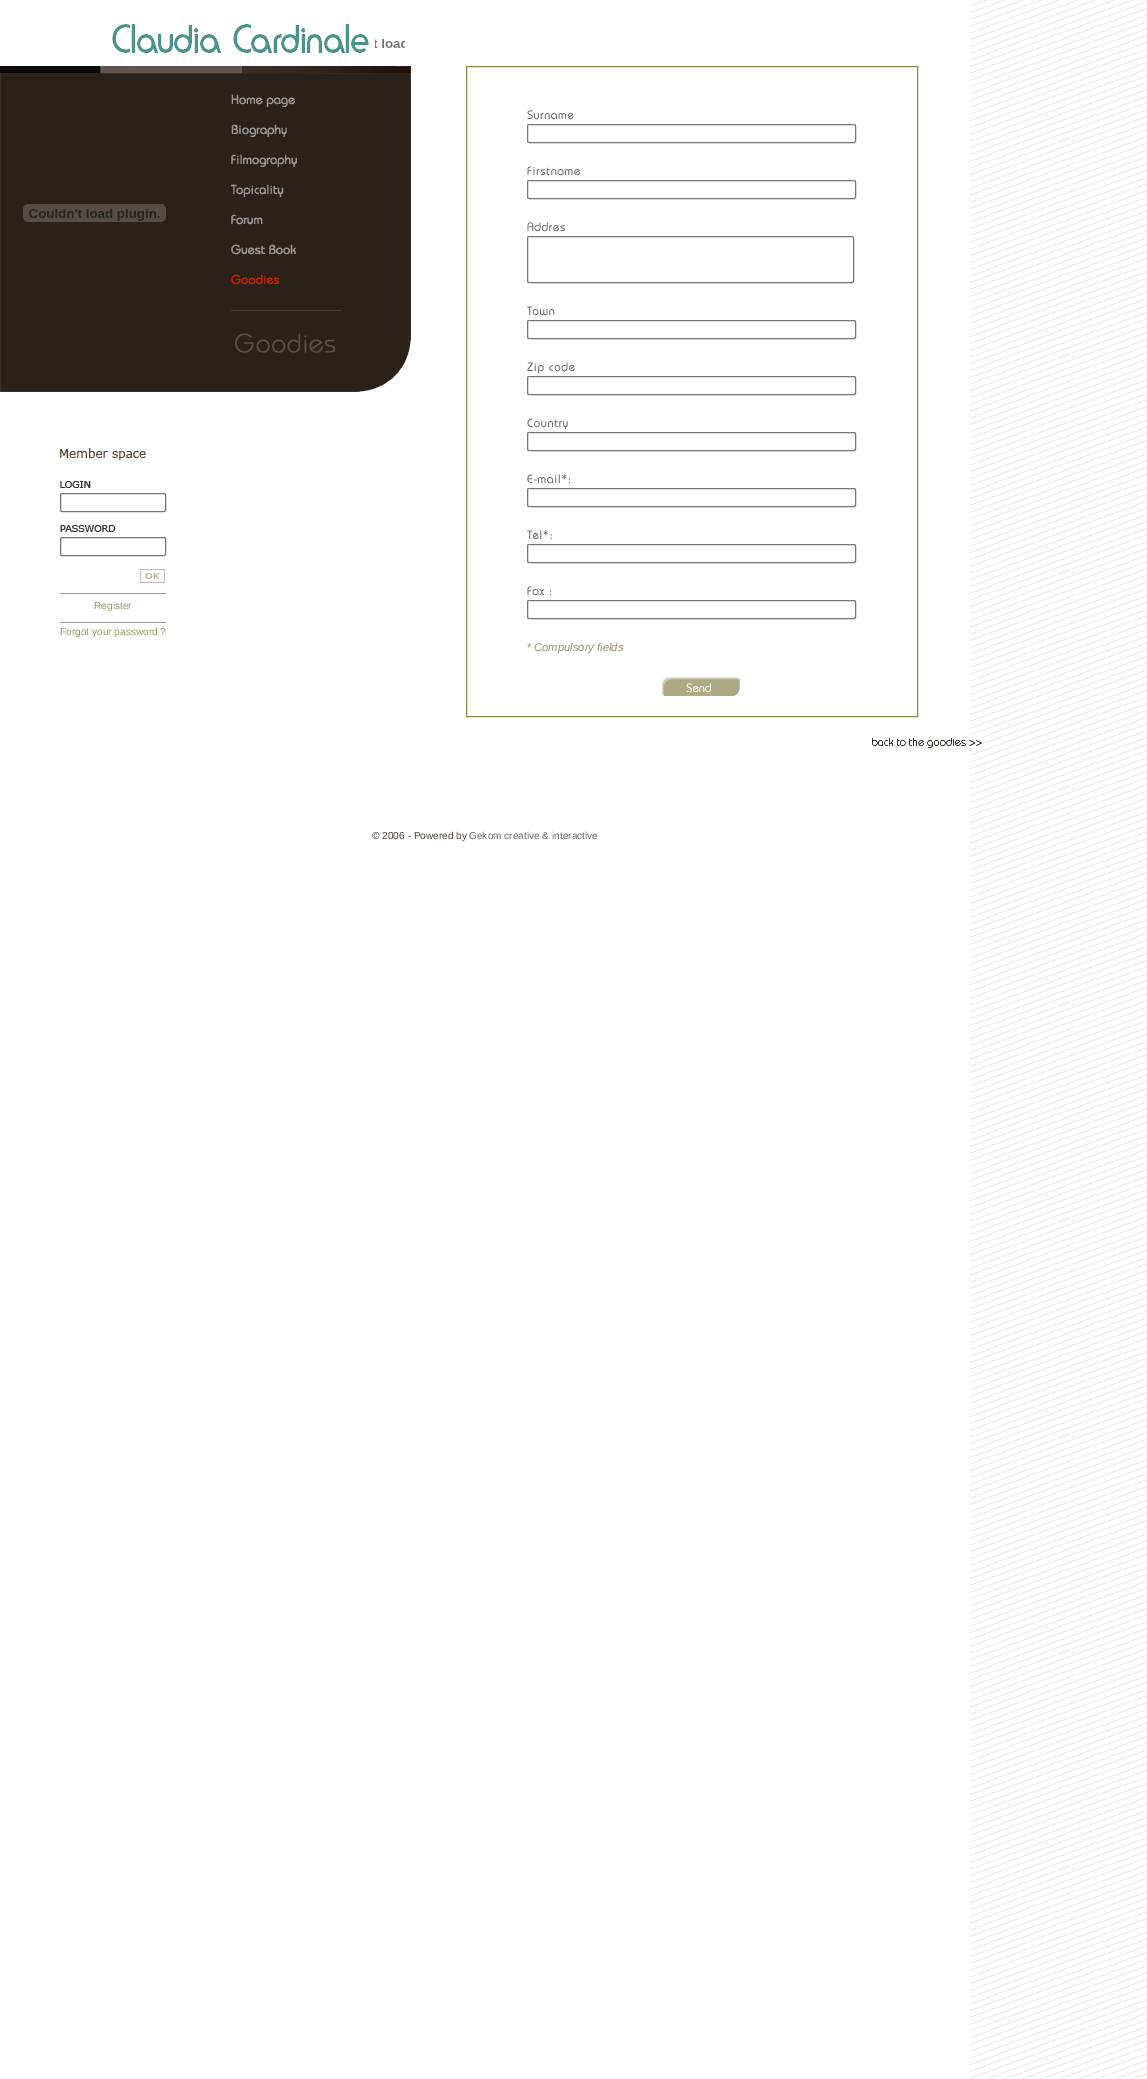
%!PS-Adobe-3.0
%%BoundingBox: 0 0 1147 2079
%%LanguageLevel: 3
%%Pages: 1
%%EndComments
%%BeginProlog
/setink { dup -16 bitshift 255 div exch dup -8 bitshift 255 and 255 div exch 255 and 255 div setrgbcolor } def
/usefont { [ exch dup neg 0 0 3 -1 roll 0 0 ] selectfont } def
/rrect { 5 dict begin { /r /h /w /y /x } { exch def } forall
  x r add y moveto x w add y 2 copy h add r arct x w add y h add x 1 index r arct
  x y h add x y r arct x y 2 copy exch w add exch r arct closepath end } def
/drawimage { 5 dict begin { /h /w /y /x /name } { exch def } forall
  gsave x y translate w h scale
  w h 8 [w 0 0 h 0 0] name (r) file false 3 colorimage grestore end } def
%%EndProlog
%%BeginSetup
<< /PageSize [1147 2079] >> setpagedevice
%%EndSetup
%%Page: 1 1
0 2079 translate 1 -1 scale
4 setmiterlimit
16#FFFFFF setink
0 0 1147 2079 rectfill
(img1.raw) 0 0 1147 2079 drawimage
(img2.raw) 112 24 257 29 drawimage
(img3.raw) 375 39 30 9 drawimage
(img4.raw) 0 66 411 326 drawimage
(img5.raw) 0 66 396 7 drawimage
(img6.raw) 231 94 64 13 drawimage
(img7.raw) 231 124 56 13 drawimage
(img8.raw) 231 154 66 13 drawimage
(img9.raw) 231 184 53 13 drawimage
(img10.raw) 231 214 32 11 drawimage
(img11.raw) 231 244 65 11 drawimage
(img12.raw) 231 274 49 11 drawimage
(img13.raw) 23 204 143 18 drawimage
(img14.raw) 235 333 101 20 drawimage
16#4B3D2F setink
231 310 110 1 rectfill
(img15.raw) 60 448 86 12 drawimage
(img16.raw) 60 481 31 7 drawimage
16#767676 setink
60.5 493.5 105 18 1.5 rrect stroke
(img17.raw) 60 525 56 7 drawimage
60.5 537.5 105 18 1.5 rrect stroke
(img18.raw) 140 569 25 14 drawimage
16#999999 setink
60 593 106 1 rectfill
/LiberationSans-Regular 10.1 usefont
16#999966 setink
94 609 moveto (Register) show
16#999999 setink
60 622 106 1 rectfill
16#999966 setink
60 635 moveto (Forgot your password ?) show
16#92874B setink
466.5 66.5 451 650 rectstroke
(img19.raw) 527 110 47 10 drawimage
16#767676 setink
527.5 124.5 328 18 1.5 rrect stroke
(img20.raw) 527 166 53 10 drawimage
527.5 180.5 328 18 1.5 rrect stroke
(img21.raw) 527 222 38 10 drawimage
527.5 236.5 326 46 1.5 rrect stroke
(img22.raw) 527 306 28 10 drawimage
527.5 320.5 328 18 1.5 rrect stroke
(img23.raw) 527 362 48 11 drawimage
527.5 376.5 328 18 1.5 rrect stroke
(img24.raw) 527 418 41 11 drawimage
527.5 432.5 328 18 1.5 rrect stroke
(img25.raw) 527 474 44 10 drawimage
527.5 488.5 328 18 1.5 rrect stroke
(img26.raw) 527 530 25 10 drawimage
527.5 544.5 328 18 1.5 rrect stroke
(img27.raw) 527 586 25 10 drawimage
527.5 600.5 328 18 1.5 rrect stroke
/LiberationSans-Regular 11.25 usefont
16#958D6C setink
527 651 moveto (*) show
/LiberationSans-Italic 11.25 usefont
534 651 moveto (Compulsory fields) show
(img28.raw) 662 677 78 19 drawimage
(img29.raw) 872 737 111 11 drawimage
/LiberationSans-Regular 10.1 usefont
16#4D433B setink
372 839 moveto (© 2006 - Powered by) show
16#666666 setink
469 839 moveto (Gekom creative & interactive) show
showpage
%%EOF
